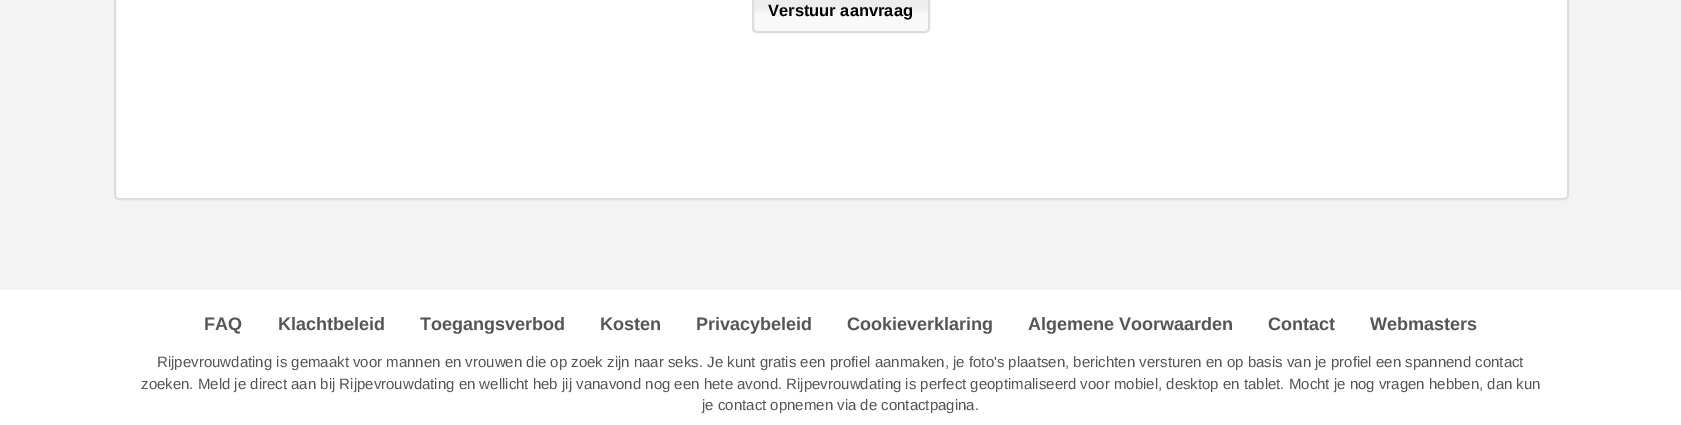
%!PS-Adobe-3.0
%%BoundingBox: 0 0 1681 425
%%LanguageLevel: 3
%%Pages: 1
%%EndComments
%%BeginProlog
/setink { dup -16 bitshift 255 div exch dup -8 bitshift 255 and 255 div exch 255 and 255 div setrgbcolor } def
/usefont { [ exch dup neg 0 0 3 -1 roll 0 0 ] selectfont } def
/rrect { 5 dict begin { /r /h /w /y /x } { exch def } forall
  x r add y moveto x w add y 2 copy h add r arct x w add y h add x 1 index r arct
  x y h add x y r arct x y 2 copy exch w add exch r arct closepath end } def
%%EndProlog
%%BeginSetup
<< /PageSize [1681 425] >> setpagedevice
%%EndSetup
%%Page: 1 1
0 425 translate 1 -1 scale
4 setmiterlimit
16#F3F3F3 setink
0 0 1681 425 rectfill
16#FFFFFF setink
115 -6 1453 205 4 rrect gsave fill grestore
16#DDDDDD setink
2 setlinewidth
stroke
gsave
752 -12 178 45 5 rrect clip newpath
gsave 752 0 moveto 930 0 lineto 930 32 lineto 752 32 lineto closepath clip newpath
<< /ShadingType 2 /ColorSpace /DeviceRGB /Coords [841 -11 841 32] /Extend [true true] /Function << /FunctionType 3 /Domain [0 1] /Functions [<< /FunctionType 2 /Domain [0 1] /C0 [0.929 0.929 0.929] /C1 [0.929 0.929 0.929] /N 1 >> << /FunctionType 2 /Domain [0 1] /C0 [0.929 0.929 0.929] /C1 [0.976 0.976 0.976] /N 1 >> << /FunctionType 2 /Domain [0 1] /C0 [0.976 0.976 0.976] /C1 [0.976 0.976 0.976] /N 1 >>] /Bounds [0.4 0.6] /Encode [0 1 0 1 0 1] >> >> shfill grestore
grestore
753 -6 176 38 4 rrect stroke
/LiberationSans-Bold 16.5 usefont
16#000000 setink
768 16 moveto (Verstuur aanvraag) show
16#FFFFFF setink
0 290 1681 135 rectfill
/LiberationSans-Bold 18 usefont
16#555555 setink
[
    [(FAQ) 204 330]
    [(Klachtbeleid) 278 330]
    [(Toegangsverbod) 420 330]
    [(Kosten) 600 330]
    [(Privacybeleid) 696 330]
    [(Cookieverklaring) 847 330]
    [(Algemene Voorwaarden) 1028 330]
    [(Contact) 1268 330]
    [(Webmasters) 1370 330]
] { aload pop moveto show } forall
/LiberationSans-Regular 15 usefont
[
    [(Rijpevrouwdating is gemaakt voor mannen en vrouwen die op zoek zijn naar seks. Je kunt gratis een profiel aanmaken, je foto's plaatsen, berichten versturen en op basis van je profiel een spannend contact) 157 367]
    [(zoeken. Meld je direct aan bij Rijpevrouwdating en wellicht heb jij vanavond nog een hete avond. Rijpevrouwdating is perfect geoptimaliseerd voor mobiel, desktop en tablet. Mocht je nog vragen hebben, dan kun) 141 389]
    [(je contact opnemen via de contactpagina.) 702 410]
] { aload pop moveto show } forall
showpage
%%EOF
